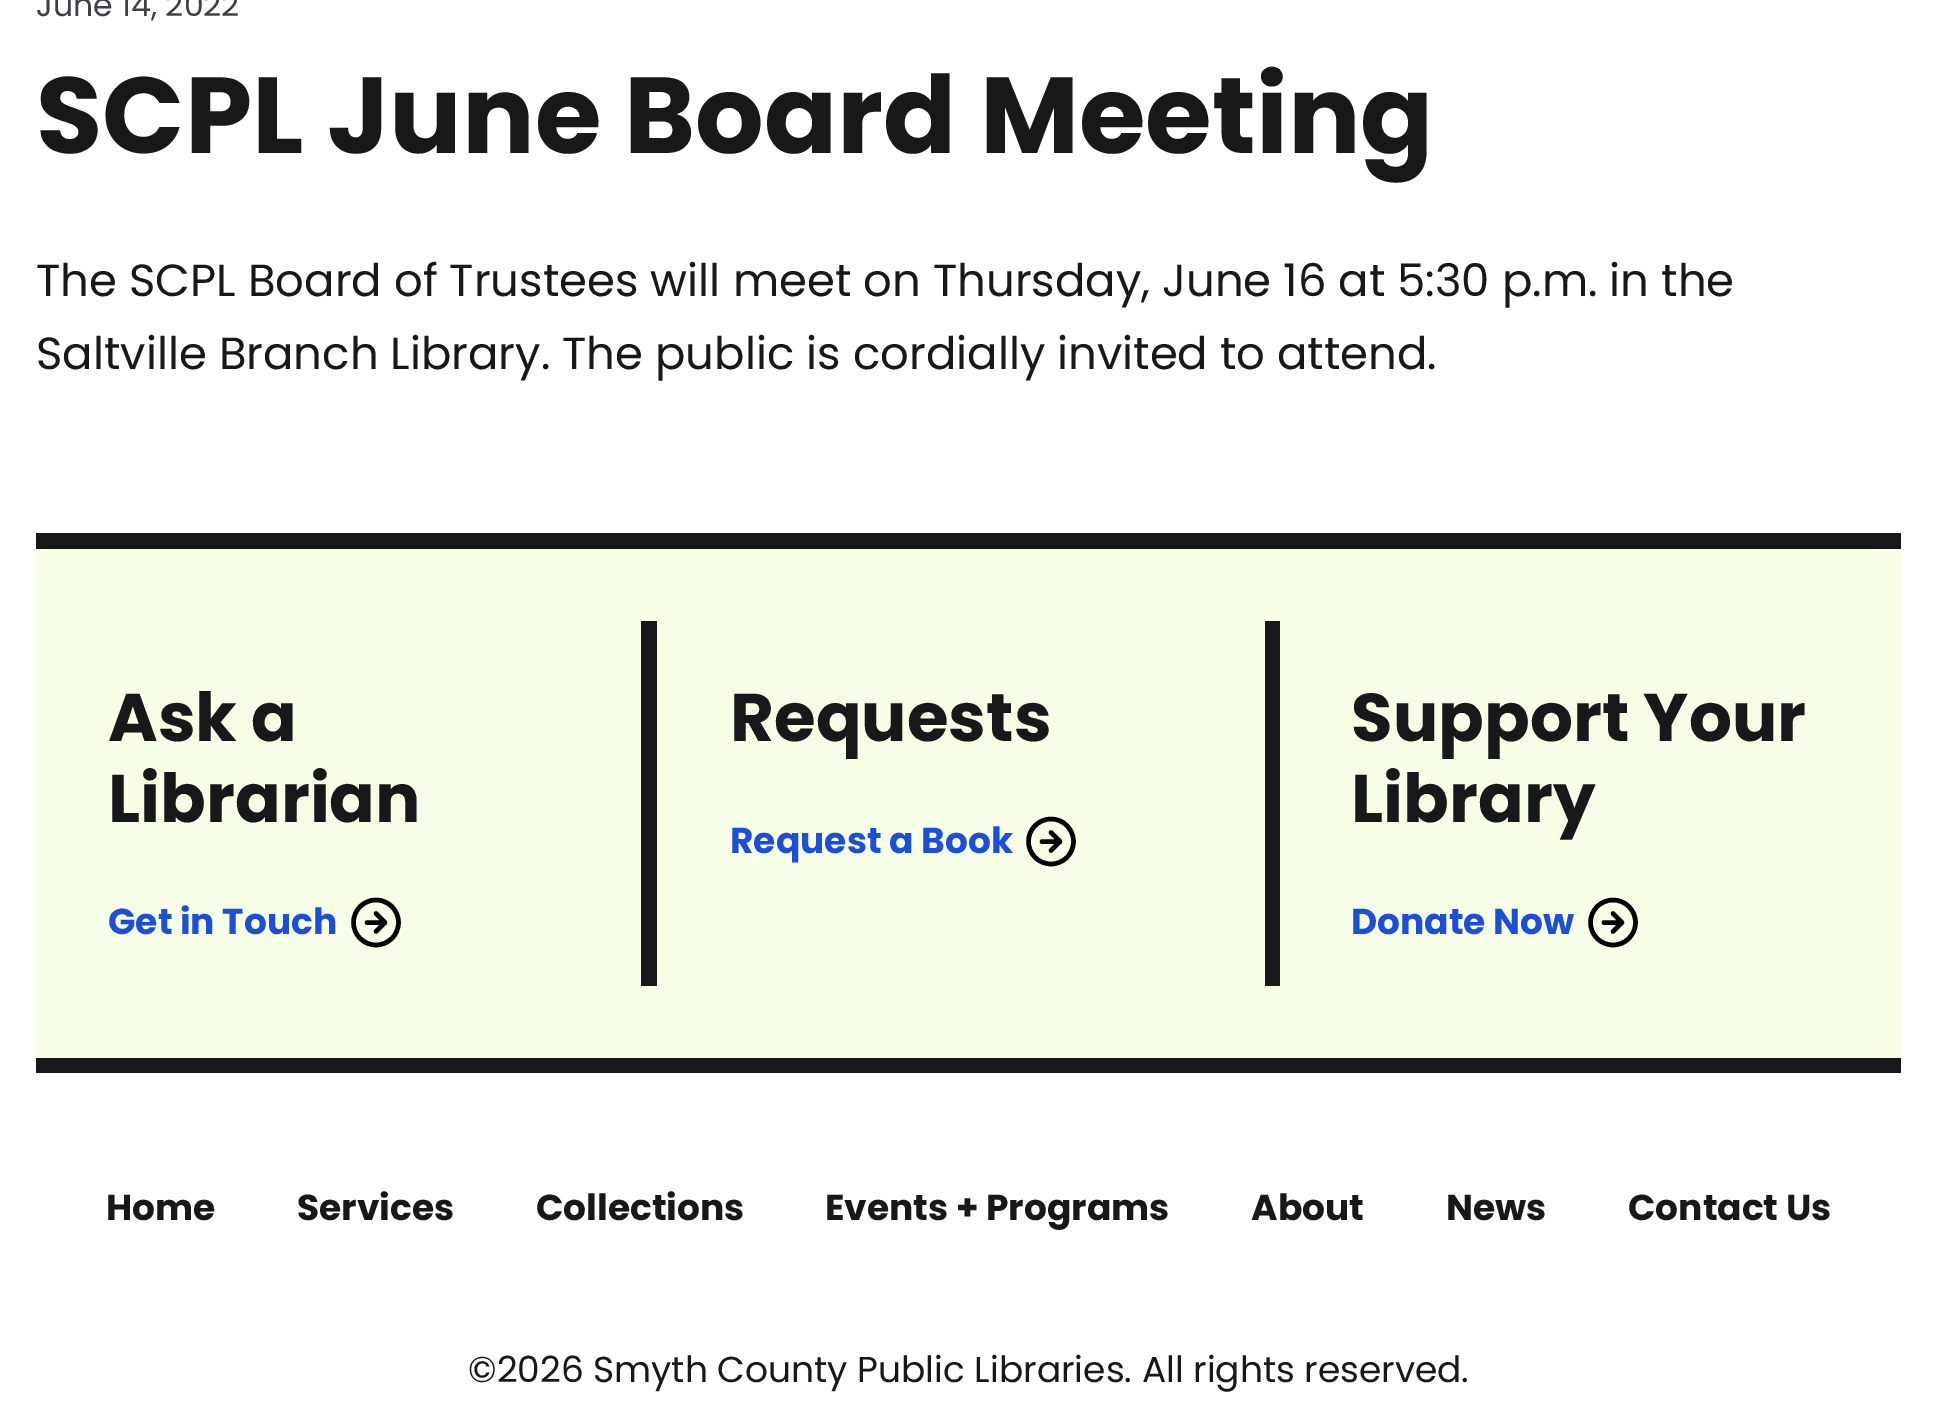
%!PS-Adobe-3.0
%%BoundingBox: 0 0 1937 1417
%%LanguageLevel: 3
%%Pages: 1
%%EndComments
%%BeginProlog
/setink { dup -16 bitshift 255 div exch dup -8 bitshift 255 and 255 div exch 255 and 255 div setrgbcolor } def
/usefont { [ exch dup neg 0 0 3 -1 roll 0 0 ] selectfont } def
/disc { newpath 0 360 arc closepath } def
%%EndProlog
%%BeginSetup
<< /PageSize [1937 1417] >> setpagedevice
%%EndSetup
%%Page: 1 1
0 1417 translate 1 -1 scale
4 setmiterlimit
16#FFFFFF setink
0 0 1937 1417 rectfill
/Poppins-Regular 31.5 usefont
16#3F3F46 setink
36 16 moveto (June 14, 2022) show
/Poppins-Bold 108 usefont
16#18181B setink
36 153 moveto (SCPL June Board Meeting) show
/Poppins-Regular 45 usefont
36 296 moveto (The SCPL Board of Trustees will meet on Thursday, June 16 at 5:30 p.m. in the) show
36 369 moveto (Saltville Branch Library. The public is cordially invited to attend.) show
[
    [36 549 1865 509 16#F7FEE7]
    [36 533 1865 16 16#18181B]
    [36 1058 1865 15 16#18181B]
    [641 621 16 365 16#18181B]
] { aload pop setink rectfill } forall
/Poppins-Bold 67.5 usefont
108 741 moveto (Ask a) show
108 822 moveto (Librarian) show
/Poppins-Bold 36 usefont
16#1D4ED8 setink
108 934 moveto (Get in Touch) show
16#000000 setink
4.5 setlinewidth
376 922.5 22.5 disc stroke
1 setlinecap
1 setlinejoin
376 931.5 moveto 385 922.5 lineto 376 913.5 lineto 367 922.5 moveto 385 922.5 lineto stroke
16#18181B setink
1265 621 15 365 rectfill
/Poppins-Bold 67.5 usefont
730 741 moveto (Requests) show
/Poppins-Bold 36 usefont
16#1D4ED8 setink
730 853 moveto (Request a Book) show
16#000000 setink
0 setlinecap
0 setlinejoin
1051 841.5 22.5 disc stroke
1 setlinecap
1 setlinejoin
1051 850.5 moveto 1060 841.5 lineto 1051 832.5 lineto 1042 841.5 moveto 1060 841.5 lineto stroke
/Poppins-Bold 67.5 usefont
16#18181B setink
1351 741 moveto (Support Your) show
1351 822 moveto (Library) show
/Poppins-Bold 36 usefont
16#1D4ED8 setink
1351 934 moveto (Donate Now) show
16#000000 setink
0 setlinecap
0 setlinejoin
1613 922.5 22.5 disc stroke
1 setlinecap
1 setlinejoin
1613 931.5 moveto 1622 922.5 lineto 1613 913.5 lineto 1604 922.5 moveto 1622 922.5 lineto stroke
16#18181B setink
[
    [(Home) 106 1220]
    [(Services) 297 1220]
    [(Collections) 536 1220]
    [(Events + Programs) 825 1220]
    [(About) 1251 1220]
    [(News) 1446 1220]
    [(Contact Us) 1628 1220]
] { aload pop moveto show } forall
/Poppins-Regular 36 usefont
468 1382 moveto (©2026 Smyth County Public Libraries. All rights reserved.) show
showpage
%%EOF
